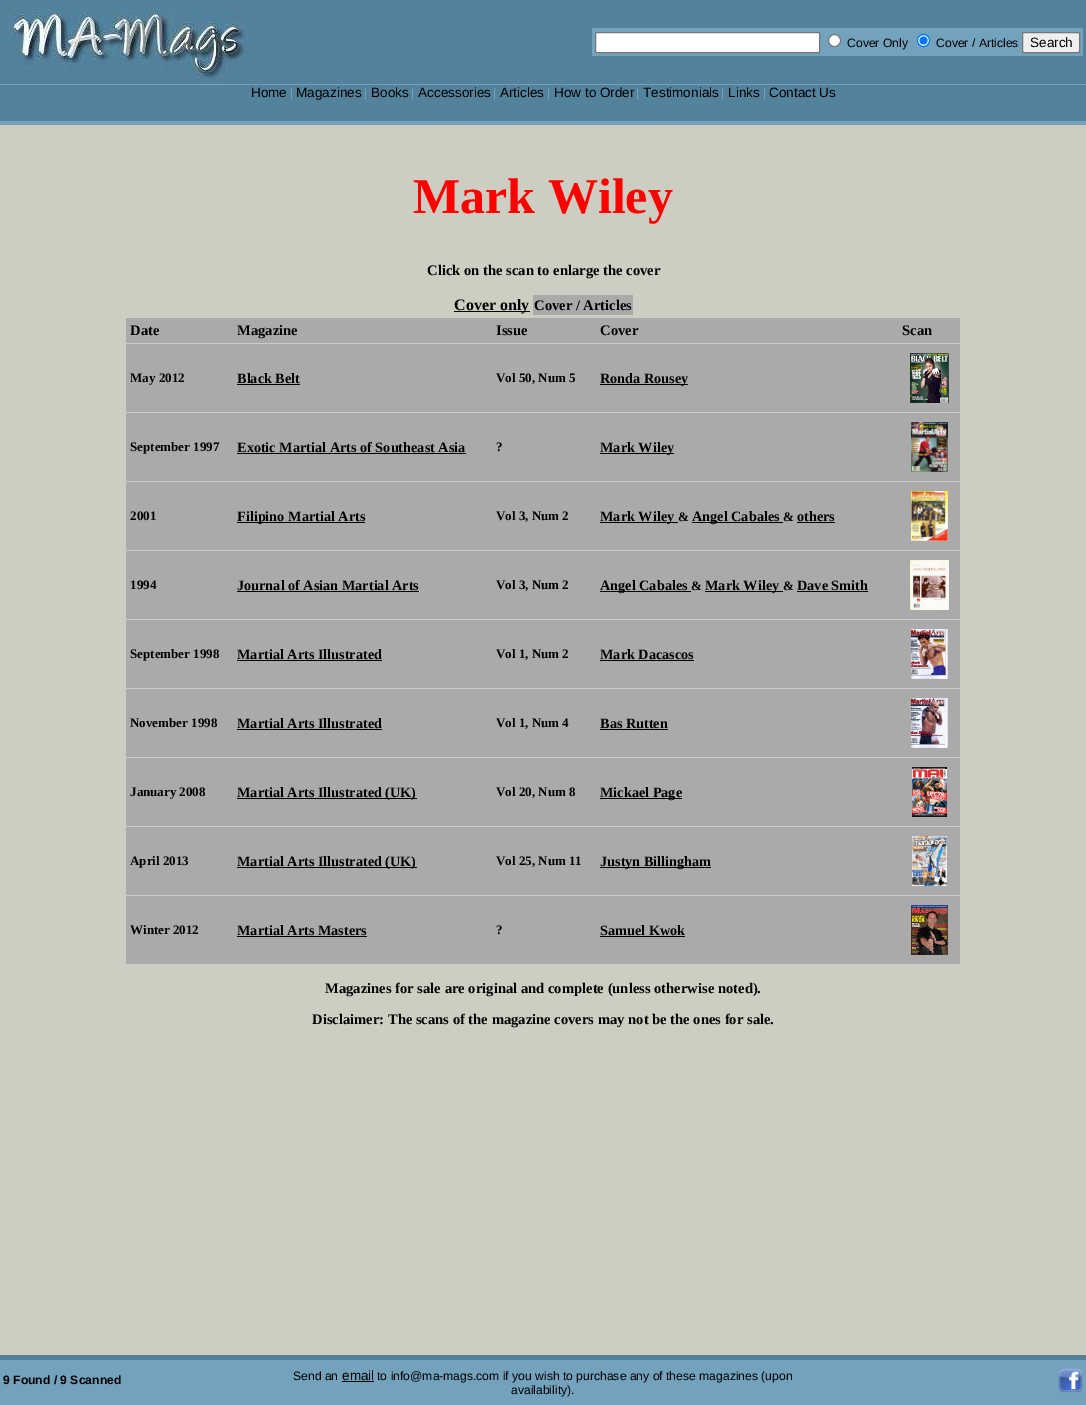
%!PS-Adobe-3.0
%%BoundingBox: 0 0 1086 1405
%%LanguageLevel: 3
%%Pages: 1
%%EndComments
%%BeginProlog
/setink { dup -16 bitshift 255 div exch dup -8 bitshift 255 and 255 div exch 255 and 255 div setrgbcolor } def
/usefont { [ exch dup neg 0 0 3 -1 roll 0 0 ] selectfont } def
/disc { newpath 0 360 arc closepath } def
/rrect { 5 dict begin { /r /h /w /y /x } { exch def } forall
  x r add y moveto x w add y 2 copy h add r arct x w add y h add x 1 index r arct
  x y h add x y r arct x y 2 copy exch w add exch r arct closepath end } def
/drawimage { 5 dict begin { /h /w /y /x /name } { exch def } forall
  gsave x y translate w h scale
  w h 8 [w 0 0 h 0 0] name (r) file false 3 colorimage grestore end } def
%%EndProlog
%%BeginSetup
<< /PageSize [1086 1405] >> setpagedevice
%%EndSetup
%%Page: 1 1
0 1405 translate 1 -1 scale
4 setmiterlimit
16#53829D setink
0 0 1086 1405 rectfill
16#73A2BD setink
0 121 1086 4 rectfill
(img1.raw) 13 13 233 68 drawimage
592 28 491 28 rectfill
16#FFFFFF setink
595.5 32.5 224 20 1.5 rrect gsave fill grestore
16#767676 setink
stroke
16#FFFFFF setink
834.5 40.5 6 disc gsave fill grestore
16#767676 setink
stroke
/LiberationSans-Regular 12.15 usefont
16#000000 setink
847 47 moveto (Cover Only) show
16#FFFFFF setink
923.5 40.5 6 disc gsave fill grestore
16#0075FF setink
stroke
923.5 40.5 4 disc fill
16#000000 setink
936 47 moveto (Cover / Articles) show
16#EFEFEF setink
1022.5 32.5 57 20 1.5 rrect gsave fill grestore
16#767676 setink
stroke
/LiberationSans-Regular 13.5 usefont
16#000000 setink
1030 47 moveto (Search) show
16#73A2BD setink
0 84 1086 1 rectfill
16#000000 setink
251 97 moveto (Home) show
/LiberationSans-Regular 12.15 usefont
16#73A2BD setink
290 97 moveto (|) show
/LiberationSans-Regular 13.5 usefont
16#000000 setink
296 97 moveto (Magazines) show
/LiberationSans-Regular 12.15 usefont
16#73A2BD setink
364 97 moveto (|) show
/LiberationSans-Regular 13.5 usefont
16#000000 setink
371 97 moveto (Books) show
/LiberationSans-Regular 12.15 usefont
16#73A2BD setink
411 97 moveto (|) show
/LiberationSans-Regular 13.5 usefont
16#000000 setink
418 97 moveto (Accessories) show
/LiberationSans-Regular 12.15 usefont
16#73A2BD setink
493 97 moveto (|) show
/LiberationSans-Regular 13.5 usefont
16#000000 setink
500 97 moveto (Articles) show
/LiberationSans-Regular 12.15 usefont
16#73A2BD setink
547 97 moveto (|) show
/LiberationSans-Regular 13.5 usefont
16#000000 setink
554 97 moveto (How to Order) show
/LiberationSans-Regular 12.15 usefont
16#73A2BD setink
636 97 moveto (|) show
/LiberationSans-Regular 13.5 usefont
16#000000 setink
643 97 moveto (Testimonials) show
/LiberationSans-Regular 12.15 usefont
16#73A2BD setink
721 97 moveto (|) show
/LiberationSans-Regular 13.5 usefont
16#000000 setink
728 97 moveto (Links) show
/LiberationSans-Regular 12.15 usefont
16#73A2BD setink
763 97 moveto (|) show
/LiberationSans-Regular 13.5 usefont
16#000000 setink
769 97 moveto (Contact Us) show
16#CDCDC1 setink
0 125 1086 1230 rectfill
/LiberationSerif-Bold 50 usefont
16#FF0000 setink
413 213 moveto (Mark Wiley) show
/LiberationSerif-Bold 14.6 usefont
16#000000 setink
427 275 moveto (Click on the scan to enlarge the cover) show
454 311 76 1 rectfill
/LiberationSerif-Bold 16 usefont
454 310 moveto (Cover only) show
16#AAAAAA setink
533 295 100 20 rectfill
/LiberationSerif-Bold 14.6 usefont
16#000000 setink
534 310 moveto (Cover / Articles) show
16#AAAAAA setink
126 318 834 25 rectfill
16#000000 setink
[
    [(Date) 130 335]
    [(Magazine) 237 335]
    [(Issue) 496 335]
    [(Cover) 600 335]
    [(Scan) 902 335]
] { aload pop moveto show } forall
16#AAAAAA setink
126 344 834 68 rectfill
/LiberationSerif-Bold 13 usefont
16#000000 setink
130 382 moveto (May 2012) show
/LiberationSerif-Bold 14.25 usefont
237 383 moveto (Black Belt) show
237 384 63 1 rectfill
/LiberationSerif-Bold 13 usefont
496 382 moveto (Vol 50, Num 5) show
600 384 88 1 rectfill
/LiberationSerif-Bold 14.25 usefont
600 383 moveto (Ronda Rousey) show
(img2.raw) 910 353 39 50 drawimage
16#AAAAAA setink
126 413 834 68 rectfill
/LiberationSerif-Bold 13 usefont
16#000000 setink
130 451 moveto (September 1997) show
/LiberationSerif-Bold 14.25 usefont
237 452 moveto (Exotic Martial Arts of Southeast Asia) show
237 453 229 1 rectfill
/LiberationSerif-Bold 13 usefont
496 451 moveto (?) show
600 453 74 1 rectfill
/LiberationSerif-Bold 14.25 usefont
600 452 moveto (Mark Wiley) show
(img3.raw) 911 422 37 50 drawimage
16#AAAAAA setink
126 482 834 68 rectfill
/LiberationSerif-Bold 13 usefont
16#000000 setink
130 520 moveto (2001) show
237 522 128 1 rectfill
/LiberationSerif-Bold 14.25 usefont
237 521 moveto (Filipino Martial Arts) show
/LiberationSerif-Bold 13 usefont
496 520 moveto (Vol 3, Num 2) show
600 522 78 1 rectfill
/LiberationSerif-Bold 14.25 usefont
600 521 moveto (Mark Wiley) show
/LiberationSerif-Bold 13 usefont
678 521 moveto (&) show
692 522 91 1 rectfill
/LiberationSerif-Bold 14.25 usefont
692 521 moveto (Angel Cabales) show
/LiberationSerif-Bold 13 usefont
783 521 moveto (&) show
/LiberationSerif-Bold 14.25 usefont
797 521 moveto (others) show
797 522 38 1 rectfill
(img4.raw) 911 491 37 50 drawimage
16#AAAAAA setink
126 551 834 68 rectfill
/LiberationSerif-Bold 13 usefont
16#000000 setink
130 589 moveto (1994) show
/LiberationSerif-Bold 14.25 usefont
237 590 moveto (Journal of Asian Martial Arts) show
237 591 182 1 rectfill
/LiberationSerif-Bold 13 usefont
496 589 moveto (Vol 3, Num 2) show
600 591 91 1 rectfill
/LiberationSerif-Bold 14.25 usefont
600 590 moveto (Angel Cabales) show
/LiberationSerif-Bold 13 usefont
691 590 moveto (&) show
705 591 78 1 rectfill
/LiberationSerif-Bold 14.25 usefont
705 590 moveto (Mark Wiley) show
/LiberationSerif-Bold 13 usefont
783 590 moveto (&) show
/LiberationSerif-Bold 14.25 usefont
797 590 moveto (Dave Smith) show
797 591 71 1 rectfill
(img5.raw) 910 560 39 50 drawimage
16#AAAAAA setink
126 620 834 68 rectfill
/LiberationSerif-Bold 13 usefont
16#000000 setink
130 658 moveto (September 1998) show
/LiberationSerif-Bold 14.25 usefont
237 659 moveto (Martial Arts Illustrated) show
237 660 145 1 rectfill
/LiberationSerif-Bold 13 usefont
496 658 moveto (Vol 1, Num 2) show
/LiberationSerif-Bold 14.25 usefont
600 659 moveto (Mark Dacascos) show
600 660 94 1 rectfill
(img6.raw) 911 629 37 50 drawimage
16#AAAAAA setink
126 689 834 68 rectfill
/LiberationSerif-Bold 13 usefont
16#000000 setink
130 727 moveto (November 1998) show
/LiberationSerif-Bold 14.25 usefont
237 728 moveto (Martial Arts Illustrated) show
237 729 145 1 rectfill
/LiberationSerif-Bold 13 usefont
496 727 moveto (Vol 1, Num 4) show
/LiberationSerif-Bold 14.25 usefont
600 728 moveto (Bas Rutten) show
600 729 68 1 rectfill
(img7.raw) 911 698 37 50 drawimage
16#AAAAAA setink
126 758 834 68 rectfill
/LiberationSerif-Bold 13 usefont
16#000000 setink
130 796 moveto (January 2008) show
237 798 180 1 rectfill
/LiberationSerif-Bold 14.25 usefont
237 797 moveto (Martial Arts Illustrated \(UK\)) show
/LiberationSerif-Bold 13 usefont
496 796 moveto (Vol 20, Num 8) show
600 798 82 1 rectfill
/LiberationSerif-Bold 14.25 usefont
600 797 moveto (Mickael Page) show
(img8.raw) 912 767 35 50 drawimage
16#AAAAAA setink
126 827 834 68 rectfill
/LiberationSerif-Bold 13 usefont
16#000000 setink
130 865 moveto (April 2013) show
237 867 180 1 rectfill
/LiberationSerif-Bold 14.25 usefont
237 866 moveto (Martial Arts Illustrated \(UK\)) show
/LiberationSerif-Bold 13 usefont
496 865 moveto (Vol 25, Num 11) show
600 867 111 1 rectfill
/LiberationSerif-Bold 14.25 usefont
600 866 moveto (Justyn Billingham) show
(img9.raw) 912 836 35 50 drawimage
16#AAAAAA setink
126 896 834 68 rectfill
/LiberationSerif-Bold 13 usefont
16#000000 setink
130 934 moveto (Winter 2012) show
/LiberationSerif-Bold 14.25 usefont
237 935 moveto (Martial Arts Masters) show
237 936 130 1 rectfill
/LiberationSerif-Bold 13 usefont
496 934 moveto (?) show
/LiberationSerif-Bold 14.25 usefont
600 935 moveto (Samuel Kwok) show
600 936 85 1 rectfill
(img10.raw) 911 905 37 50 drawimage
/LiberationSerif-Bold 14.6 usefont
325 993 moveto (Magazines for sale are original and complete \(unless otherwise noted\).) show
312 1024 moveto (Disclaimer: The scans of the magazine covers may not be the ones for sale.) show
16#73A2BD setink
0 1360 1086 45 rectfill
/LiberationSans-Bold 12.15 usefont
16#000000 setink
3 1384 moveto (9 Found / 9 Scanned) show
/LiberationSans-Regular 12.15 usefont
293 1380 moveto (Send an) show
/LiberationSans-Regular 13.5 usefont
342 1380 moveto (email) show
342 1381 32 1 rectfill
/LiberationSans-Regular 12.15 usefont
377 1380 moveto (to info@ma-mags.com if you wish to purchase any of these magazines \(upon) show
511 1394 moveto (availability\).) show
(img11.raw) 1058 1368 25 25 drawimage
showpage
%%EOF
